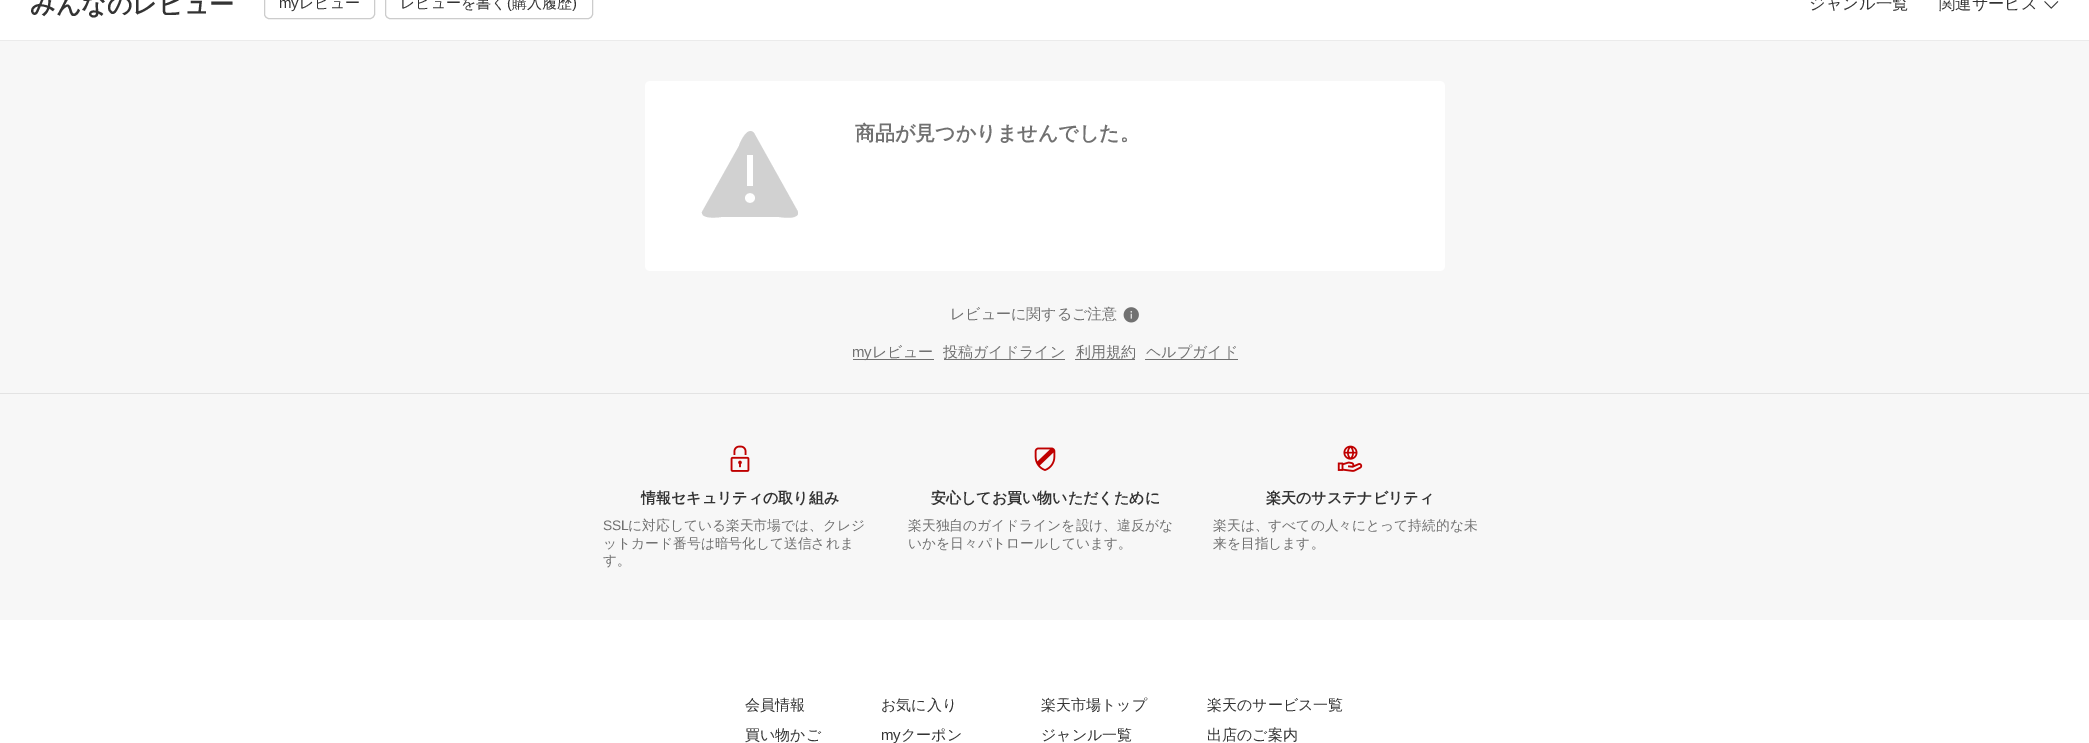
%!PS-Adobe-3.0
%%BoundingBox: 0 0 2089 743
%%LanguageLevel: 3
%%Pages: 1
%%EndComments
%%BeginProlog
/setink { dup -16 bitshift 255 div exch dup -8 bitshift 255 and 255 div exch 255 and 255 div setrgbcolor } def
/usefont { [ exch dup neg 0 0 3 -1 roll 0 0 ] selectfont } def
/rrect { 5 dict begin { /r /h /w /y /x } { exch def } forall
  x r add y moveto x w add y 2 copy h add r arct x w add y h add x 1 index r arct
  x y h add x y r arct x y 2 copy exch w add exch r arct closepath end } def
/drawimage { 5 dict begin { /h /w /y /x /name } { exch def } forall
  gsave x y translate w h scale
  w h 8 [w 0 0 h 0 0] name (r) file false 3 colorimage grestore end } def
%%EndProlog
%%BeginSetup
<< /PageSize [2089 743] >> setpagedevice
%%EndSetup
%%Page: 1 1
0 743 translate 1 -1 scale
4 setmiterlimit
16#FFFFFF setink
0 0 2089 743 rectfill
16#EBEBEB setink
0 40 2089 1 rectfill
/WenQuanYiZenHei-Bold 25 usefont
16#333333 setink
30 13 moveto (みんなのレビュー) show
16#CCCCCC setink
264.5 -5.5 110 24 4.5 rrect stroke
/LiberationSans-Regular 15 usefont
16#333333 setink
279 8 moveto (my) show
/WenQuanYiZenHei-Medium 15 usefont
299 8 moveto (レビュー) show
16#CCCCCC setink
385.5 -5.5 207 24 4.5 rrect stroke
16#333333 setink
400 8 moveto (レビューを書く) show
/LiberationSans-Regular 15 usefont
507 8 moveto (\() show
/WenQuanYiZenHei-Medium 15 usefont
512 8 moveto (購入履歴) show
/LiberationSans-Regular 15 usefont
572 8 moveto (\)) show
/WenQuanYiZenHei-Medium 16.25 usefont
1809 9 moveto (ジャンル一覧) show
1939 9 moveto (関連サービス) show
(img1.raw) 2044 1 15 8 drawimage
16#F7F7F7 setink
0 41 2089 352 rectfill
16#FFFFFF setink
645 81 800 190 5 rrect fill
16#D1D1D1 setink
750 203 moveto 743 203 743 193 750 193 curveto 757 193 757 203 750 203 curveto closepath 747 186 moveto 747 155 lineto 753 155 lineto 753 186 lineto closepath 797 210 moveto 754 133 lineto 747 125 739 145 739 146 curveto 702 212 lineto 701 220 721 217 721 217 curveto 779 217 lineto 781 217 795 220 798 214 curveto 798 213 798 211 797 210 curveto closepath fill
/WenQuanYiZenHei-Bold 20 usefont
16#717171 setink
855 140 moveto (商品が見つかりませんでした。) show
16#E3E3E3 setink
0 393 2089 1 rectfill
/WenQuanYiZenHei-Medium 15 usefont
16#717171 setink
950 319 moveto (レビューに関するご注意) show
(img2.raw) 1123 307 16 16 drawimage
853 359 81 1 rectfill
/LiberationSans-Regular 15 usefont
852 357 moveto (my) show
/WenQuanYiZenHei-Medium 15 usefont
872 357 moveto (レビュー) show
944 359 121 1 rectfill
943 357 moveto (投稿ガイドライン) show
1075 359 60 1 rectfill
1076 357 moveto (利用規約) show
1146 357 moveto (ヘルプガイド) show
1145 359 93 1 rectfill
16#F7F7F7 setink
0 394 2089 226 rectfill
(img3.raw) 730 445 20 27 drawimage
/WenQuanYiZenHei-Bold 15 usefont
16#333333 setink
641 503 moveto (情報セキュリティの取り組み) show
/LiberationSans-Regular 13.75 usefont
16#717171 setink
603 530 moveto (SSL) show
/WenQuanYiZenHei-Medium 13.75 usefont
[
    [(に対応している楽天市場では、クレジ) 628 530]
    [(ットカード番号は暗号化して送信されま) 603 548]
    [(す。) 603 565]
] { aload pop moveto show } forall
(img4.raw) 1034 447 22 24 drawimage
/WenQuanYiZenHei-Bold 15 usefont
16#333333 setink
931 503 moveto (安心してお買い物いただくために) show
/WenQuanYiZenHei-Medium 13.75 usefont
16#717171 setink
908 530 moveto (楽天独自のガイドラインを設け、違反がな) show
908 548 moveto (いかを日々パトロールしています。) show
(img5.raw) 1337 445 26 27 drawimage
/WenQuanYiZenHei-Bold 15 usefont
16#333333 setink
1266 503 moveto (楽天のサステナビリティ) show
/WenQuanYiZenHei-Medium 13.75 usefont
16#717171 setink
1213 530 moveto (楽天は、すべての人々にとって持続的な未) show
1213 548 moveto (来を目指します。) show
/WenQuanYiZenHei-Medium 15 usefont
16#333333 setink
[
    [(会員情報) 745 710]
    [(買い物かご) 745 740]
    [(お気に入り) 881 710]
] { aload pop moveto show } forall
/LiberationSans-Regular 15 usefont
881 740 moveto (my) show
/WenQuanYiZenHei-Medium 15 usefont
[
    [(クーポン) 901 740]
    [(楽天市場トップ) 1041 710]
    [(ジャンル一覧) 1041 740]
    [(楽天のサービス一覧) 1207 710]
    [(出店のご案内) 1207 740]
] { aload pop moveto show } forall
showpage
%%EOF
